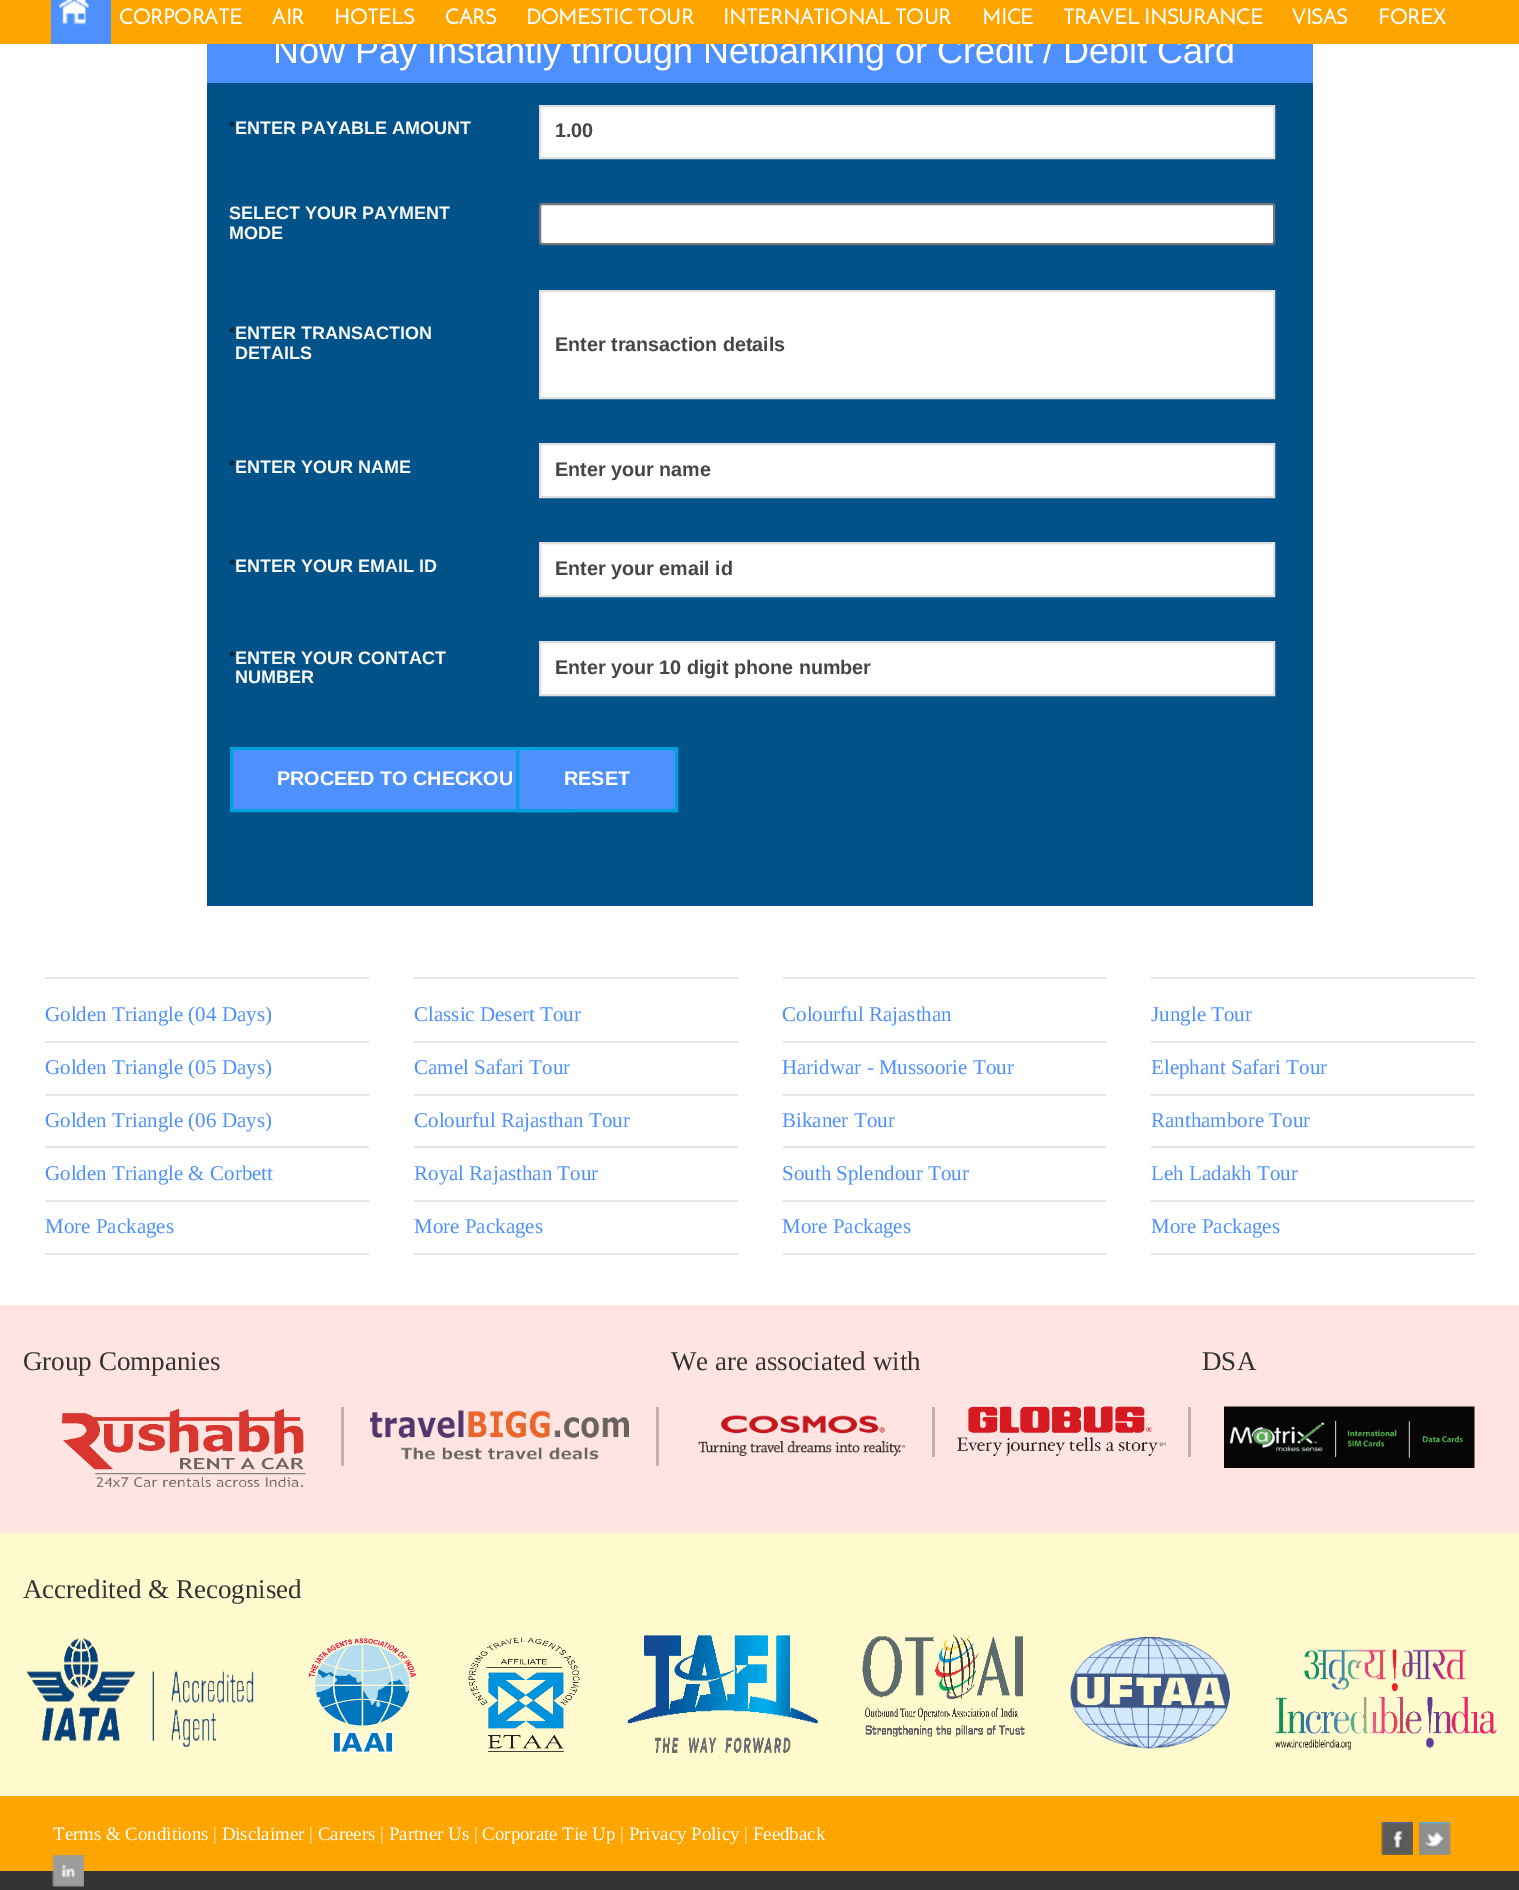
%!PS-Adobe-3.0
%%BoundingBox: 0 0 1519 1890
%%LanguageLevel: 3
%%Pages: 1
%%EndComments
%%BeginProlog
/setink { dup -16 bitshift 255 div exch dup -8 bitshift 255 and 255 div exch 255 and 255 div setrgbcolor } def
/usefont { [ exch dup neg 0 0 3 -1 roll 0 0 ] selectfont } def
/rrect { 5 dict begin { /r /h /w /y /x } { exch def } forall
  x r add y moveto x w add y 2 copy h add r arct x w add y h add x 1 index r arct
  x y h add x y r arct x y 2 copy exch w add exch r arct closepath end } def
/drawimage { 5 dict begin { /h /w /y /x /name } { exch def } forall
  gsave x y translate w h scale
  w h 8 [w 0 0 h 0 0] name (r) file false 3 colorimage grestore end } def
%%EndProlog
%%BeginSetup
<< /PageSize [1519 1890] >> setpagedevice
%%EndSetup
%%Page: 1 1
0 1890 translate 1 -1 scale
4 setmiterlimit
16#FFFFFF setink
0 0 1519 1890 rectfill
16#4D90FE setink
207 44 1106 39 rectfill
/LiberationSans-Regular 36 usefont
16#FFFFFF setink
273 63 moveto (Now Pay Instantly through Netbanking or Credit / Debit Card) show
16#FFA500 setink
0 0 1519 44 rectfill
16#4D90FE setink
51 0 60 44 rectfill
(img1.raw) 59 0 30 25 drawimage
/JosefinSans-Bold 21 usefont
16#FFFFFF setink
[
    [(CORPORATE) 119 24]
    [(AIR) 272 24]
    [(HOTELS) 334 24]
    [(CARS) 445 24]
    [(DOMESTIC TOUR) 526 24]
    [(INTERNATIONAL TOUR) 723 24]
    [(MICE) 982 24]
    [(TRAVEL INSURANCE) 1063 24]
    [(VISAS) 1292 24]
    [(FOREX) 1378 24]
] { aload pop moveto show } forall
16#015289 setink
207 83 1106 823 rectfill
/LiberationSans-Bold 16 usefont
16#012231 setink
229 132 moveto (*) show
/LiberationSans-Bold 18 usefont
16#FFFFFF setink
235 134 moveto (ENTER PAYABLE AMOUNT) show
540 106 moveto 1274 106 lineto 1274 158 lineto 540 158 lineto closepath gsave fill grestore
16#DFDFDF setink
2 setlinewidth
stroke
/LiberationSans-Bold 19.75 usefont
16#464646 setink
555 137 moveto (1.00) show
/LiberationSans-Bold 18 usefont
16#FFFFFF setink
229 219 moveto (SELECT YOUR PAYMENT) show
229 239 moveto (MODE) show
540 204 734 40 2 rrect gsave fill grestore
16#767676 setink
stroke
/LiberationSans-Bold 16 usefont
16#012231 setink
229 338 moveto (*) show
/LiberationSans-Bold 18 usefont
16#FFFFFF setink
235 339 moveto (ENTER TRANSACTION) show
235 359 moveto (DETAILS) show
540 291 moveto 1274 291 lineto 1274 398 lineto 540 398 lineto closepath gsave fill grestore
16#DFDFDF setink
stroke
/LiberationSans-Bold 19.75 usefont
16#464646 setink
555 351 moveto (Enter transaction details) show
/LiberationSans-Bold 16 usefont
16#012231 setink
229 471 moveto (*) show
/LiberationSans-Bold 18 usefont
16#FFFFFF setink
235 473 moveto (ENTER YOUR NAME) show
540 444 moveto 1274 444 lineto 1274 497 lineto 540 497 lineto closepath gsave fill grestore
16#DFDFDF setink
stroke
/LiberationSans-Bold 19.75 usefont
16#464646 setink
555 476 moveto (Enter your name) show
/LiberationSans-Bold 16 usefont
16#012231 setink
229 570 moveto (*) show
/LiberationSans-Bold 18 usefont
16#FFFFFF setink
235 572 moveto (ENTER YOUR EMAIL ID) show
540 543 moveto 1274 543 lineto 1274 596 lineto 540 596 lineto closepath gsave fill grestore
16#DFDFDF setink
stroke
/LiberationSans-Bold 19.75 usefont
16#464646 setink
555 575 moveto (Enter your email id) show
/LiberationSans-Bold 16 usefont
16#012231 setink
229 662 moveto (*) show
/LiberationSans-Bold 18 usefont
16#FFFFFF setink
235 664 moveto (ENTER YOUR CONTACT) show
235 683 moveto (NUMBER) show
540 642 moveto 1274 642 lineto 1274 695 lineto 540 695 lineto closepath gsave fill grestore
16#DFDFDF setink
stroke
/LiberationSans-Bold 19.75 usefont
16#464646 setink
555 674 moveto (Enter your 10 digit phone number) show
16#4D90FE setink
233 750 283 59 rectfill
16#00A0DC setink
3 setlinewidth
231.5 748.5 340 62 rectstroke
16#FFFFFF setink
277 785 moveto (PROCEED TO CHECKOU) show
16#4D90FE setink
517.5 748.5 moveto 676.5 748.5 lineto 676.5 810.5 lineto 517.5 810.5 lineto closepath gsave fill grestore
16#00A0DC setink
stroke
16#FFFFFF setink
564 785 moveto (RESET) show
16#E5E5E5 setink
45 977 324 2 rectfill
45 1041 324 2 rectfill
/LiberationSerif-Regular 21 usefont
16#4D90FE setink
45 1021 moveto (Golden Triangle \(04 Days\)) show
16#E5E5E5 setink
45 1094 324 2 rectfill
16#4D90FE setink
45 1074 moveto (Golden Triangle \(05 Days\)) show
16#E5E5E5 setink
45 1146 324 2 rectfill
16#4D90FE setink
45 1127 moveto (Golden Triangle \(06 Days\)) show
16#E5E5E5 setink
45 1200 324 2 rectfill
16#4D90FE setink
45 1180 moveto (Golden Triangle & Corbett) show
16#E5E5E5 setink
45 1253 324 2 rectfill
16#4D90FE setink
45 1233 moveto (More Packages) show
16#E5E5E5 setink
414 977 324 2 rectfill
414 1041 324 2 rectfill
16#4D90FE setink
414 1021 moveto (Classic Desert Tour) show
16#E5E5E5 setink
414 1094 324 2 rectfill
16#4D90FE setink
414 1074 moveto (Camel Safari Tour) show
16#E5E5E5 setink
414 1146 324 2 rectfill
16#4D90FE setink
414 1127 moveto (Colourful Rajasthan Tour) show
16#E5E5E5 setink
414 1200 324 2 rectfill
16#4D90FE setink
414 1180 moveto (Royal Rajasthan Tour) show
16#E5E5E5 setink
414 1253 324 2 rectfill
16#4D90FE setink
414 1233 moveto (More Packages) show
16#E5E5E5 setink
783 977 323 2 rectfill
783 1041 323 2 rectfill
16#4D90FE setink
782 1021 moveto (Colourful Rajasthan) show
16#E5E5E5 setink
783 1094 323 2 rectfill
16#4D90FE setink
782 1074 moveto (Haridwar - Mussoorie Tour) show
16#E5E5E5 setink
783 1146 323 2 rectfill
16#4D90FE setink
782 1127 moveto (Bikaner Tour) show
16#E5E5E5 setink
783 1200 323 2 rectfill
16#4D90FE setink
782 1180 moveto (South Splendour Tour) show
16#E5E5E5 setink
783 1253 323 2 rectfill
16#4D90FE setink
782 1233 moveto (More Packages) show
16#E5E5E5 setink
1151 977 324 2 rectfill
1151 1041 324 2 rectfill
16#4D90FE setink
1151 1021 moveto (Jungle Tour) show
16#E5E5E5 setink
1151 1094 324 2 rectfill
16#4D90FE setink
1151 1074 moveto (Elephant Safari Tour) show
16#E5E5E5 setink
1151 1146 324 2 rectfill
16#4D90FE setink
1151 1127 moveto (Ranthambore Tour) show
16#E5E5E5 setink
1151 1200 324 2 rectfill
16#4D90FE setink
1151 1180 moveto (Leh Ladakh Tour) show
16#E5E5E5 setink
1151 1253 324 2 rectfill
16#4D90FE setink
1151 1233 moveto (More Packages) show
16#FFE4E1 setink
0 1305 1519 228 rectfill
/LiberationSerif-Regular 27 usefont
16#333333 setink
23 1370 moveto (Group Companies) show
(img2.raw) 61 1408 245 79 drawimage
16#C4B1AF setink
656 1407 3 59 rectfill
341 1407 3 59 rectfill
(img3.raw) 369 1409 261 51 drawimage
16#333333 setink
671 1370 moveto (We are associated with) show
(img4.raw) 698 1415 207 41 drawimage
16#C4B1AF setink
1188 1407 3 50 rectfill
932 1407 3 50 rectfill
(img5.raw) 957 1406 209 50 drawimage
16#333333 setink
1202 1370 moveto (DSA) show
(img6.raw) 1224 1406 251 62 drawimage
16#FFFACD setink
0 1533 1519 263 rectfill
16#333333 setink
23 1598 moveto (Accredited & Recognised) show
(img7.raw) 26 1638 228 109 drawimage
(img8.raw) 307 1637 110 116 drawimage
(img9.raw) 468 1635 112 117 drawimage
(img10.raw) 627 1635 191 118 drawimage
(img11.raw) 862 1635 163 102 drawimage
(img12.raw) 1070 1637 160 112 drawimage
(img13.raw) 1275 1649 222 101 drawimage
16#FFA500 setink
0 1796 1519 75 rectfill
(img14.raw) 1381 1822 32 33 drawimage
(img15.raw) 1419 1822 32 33 drawimage
16#333333 setink
0 1871 1519 19 rectfill
(img16.raw) 52 1855 32 32 drawimage
/LiberationSerif-Regular 18.9 usefont
16#FFFFFF setink
53 1840 moveto (Terms & Conditions | Disclaimer | Careers | Partner Us | Corporate Tie Up | Privacy Policy | Feedback) show
showpage
%%EOF
